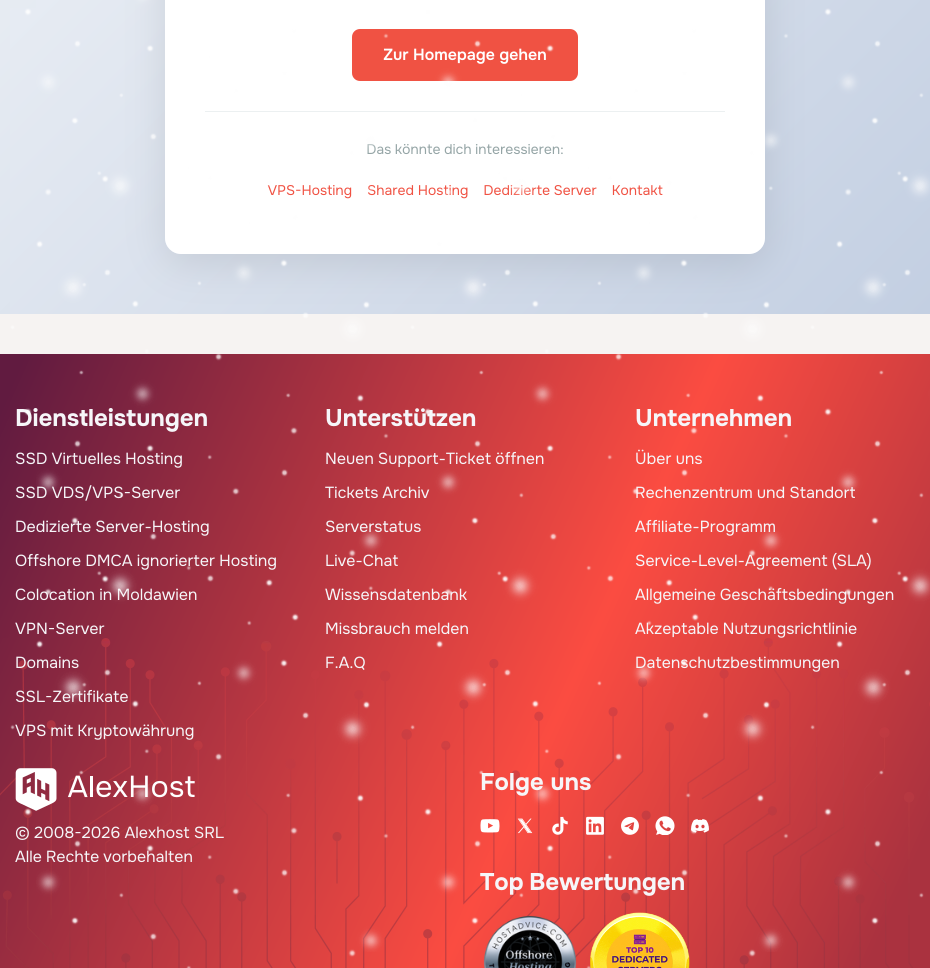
%!PS-Adobe-3.0
%%BoundingBox: 0 0 930 968
%%LanguageLevel: 3
%%Pages: 1
%%EndComments
%%BeginProlog
/setink { dup -16 bitshift 255 div exch dup -8 bitshift 255 and 255 div exch 255 and 255 div setrgbcolor } def
/usefont { [ exch dup neg 0 0 3 -1 roll 0 0 ] selectfont } def
/setalpha { dup .setfillconstantalpha .setstrokeconstantalpha } def
/rrect { 5 dict begin { /r /h /w /y /x } { exch def } forall
  x r add y moveto x w add y 2 copy h add r arct x w add y h add x 1 index r arct
  x y h add x y r arct x y 2 copy exch w add exch r arct closepath end } def
/softshadow { 12 dict begin { /a /b /q /h /w /y /x } { exch def } forall gsave /was 0 def
  9 -2 -9 { dup b mul 4 div /e exch def 1 sub .425 mul 2.718 exch exp 1 add a .99 .min exch div /now exch def
    1 1 now sub 1 was sub div sub setalpha /was now def
    w h .min e 2 mul add 0 gt { x e sub y e sub w e 2 mul add h e 2 mul add
      q e add b .6 mul add w h .min 2 div e add .min 0 .max rrect fill } if } for grestore end } def
/drawimage { 5 dict begin { /h /w /y /x /name } { exch def } forall
  gsave x y translate w h scale
  w h 8 [w 0 0 h 0 0] name (r) file false 3 colorimage grestore end } def
%%EndProlog
%%BeginSetup
<< /PageSize [930 968] /PageUsesTransparency true >> setpagedevice
%%EndSetup
%%Page: 1 1
0 .pushpdf14devicefilter
0 968 translate 1 -1 scale
4 setmiterlimit
16#F6F3F2 setink
0 0 930 968 rectfill
gsave 0 0 moveto 930 0 lineto 930 314 lineto 0 314 lineto closepath clip newpath
<< /ShadingType 2 /ColorSpace /DeviceRGB /Coords [34 -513 896 348] /Extend [true true] /Function << /FunctionType 2 /Domain [0 1] /C0 [0.961 0.969 0.98] /C1 [0.765 0.812 0.886] /N 1 >> >> shfill grestore
16#000000 setink
165 -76 600 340 16 20 0.1 softshadow
16#FFFFFF setink
165 -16 600 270 16 rrect fill
16#F05243 setink
352 29 226 52 8 rrect fill
/Onest-SemiBold 16 usefont
16#FFFFFF setink
383 60 moveto (Zur Homepage gehen) show
16#ECF0F1 setink
205 111 520 1 rectfill
/Onest-Regular 14 usefont
16#95A5A6 setink
366 154 moveto (Das könnte dich interessieren:) show
16#F05243 setink
[
    [(VPS-Hosting) 268 195]
    [(Shared Hosting) 367 195]
    [(Dedizierte Server) 483 195]
    [(Kontakt) 612 195]
] { aload pop moveto show } forall
gsave 0 354 moveto 930 354 lineto 930 968 lineto 0 968 lineto closepath clip newpath
<< /ShadingType 2 /ColorSpace /DeviceRGB /Coords [-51 467 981 934] /Extend [true true] /Function << /FunctionType 3 /Domain [0 1] /Functions [<< /FunctionType 2 /Domain [0 1] /C0 [0.38 0.106 0.251] /C1 [0.38 0.106 0.251] /N 1 >> << /FunctionType 2 /Domain [0 1] /C0 [0.38 0.106 0.251] /C1 [0.984 0.298 0.255] /N 1 >> << /FunctionType 2 /Domain [0 1] /C0 [0.984 0.298 0.255] /C1 [0.667 0.196 0.247] /N 1 >> << /FunctionType 2 /Domain [0 1] /C0 [0.667 0.196 0.247] /C1 [0.667 0.196 0.247] /N 1 >>] /Bounds [0.02 0.58 0.92] /Encode [0 1 0 1 0 1 0 1] >> >> shfill grestore
/Onest-Bold 24 usefont
16#F6F6F9 setink
15 426 moveto (Dienstleistungen) show
/Onest-Regular 16 usefont
[
    [(SSD Virtuelles Hosting) 15 464]
    [(SSD VDS/VPS-Server) 15 498]
    [(Dedizierte Server-Hosting) 15 532]
    [(Offshore DMCA ignorierter Hosting) 15 566]
    [(Colocation in Moldawien) 15 600]
    [(VPN-Server) 15 634]
] { aload pop moveto show } forall
(img13.raw) 0 638 930 330 drawimage
[
    [(Domains) 15 668]
    [(SSL-Zertifikate) 15 702]
    [(VPS mit Kryptowährung) 15 736]
] { aload pop moveto show } forall
/Onest-Bold 24 usefont
325 426 moveto (Unterstützen) show
/Onest-Regular 16 usefont
[
    [(Neuen Support-Ticket öffnen) 325 464]
    [(Tickets Archiv) 325 498]
    [(Serverstatus) 325 532]
    [(Live-Chat) 325 566]
    [(Wissensdatenbank) 325 600]
    [(Missbrauch melden) 325 634]
    [(F.A.Q) 325 668]
] { aload pop moveto show } forall
/Onest-Bold 24 usefont
635 426 moveto (Unternehmen) show
/Onest-Regular 16 usefont
[
    [(Über uns) 635 464]
    [(Rechenzentrum und Standort) 635 498]
    [(Affiliate-Programm) 635 532]
    [(Service-Level-Agreement \(SLA\)) 635 566]
    [(Allgemeine Geschäftsbedingungen) 635 600]
    [(Akzeptable Nutzungsrichtlinie) 635 634]
    [(Datenschutzbestimmungen) 635 668]
] { aload pop moveto show } forall
(img3.raw) 15 768 180 43 drawimage
15 838 moveto (© 2008-2026 Alexhost SRL) show
15 862 moveto (Alle Rechte vorbehalten) show
/Onest-Bold 24 usefont
480 790 moveto (Folge uns) show
(img4.raw) 480 819 20 14 drawimage
(img5.raw) 517 818 16 16 drawimage
(img6.raw) 552 816 16 19 drawimage
(img7.raw) 586 816 18 19 drawimage
(img8.raw) 621 816 18 19 drawimage
(img9.raw) 655 816 20 19 drawimage
(img10.raw) 691 819 18 14 drawimage
480 890 moveto -1 0 32 (Top Bewertungen) widthshow
(img11.raw) 483 915 94 53 drawimage
(img12.raw) 590 912 100 56 drawimage
(img1.raw) 36 0 894 952 drawimage
(img2.raw) 10 8 914 960 drawimage
.poppdf14devicefilter showpage
%%EOF
